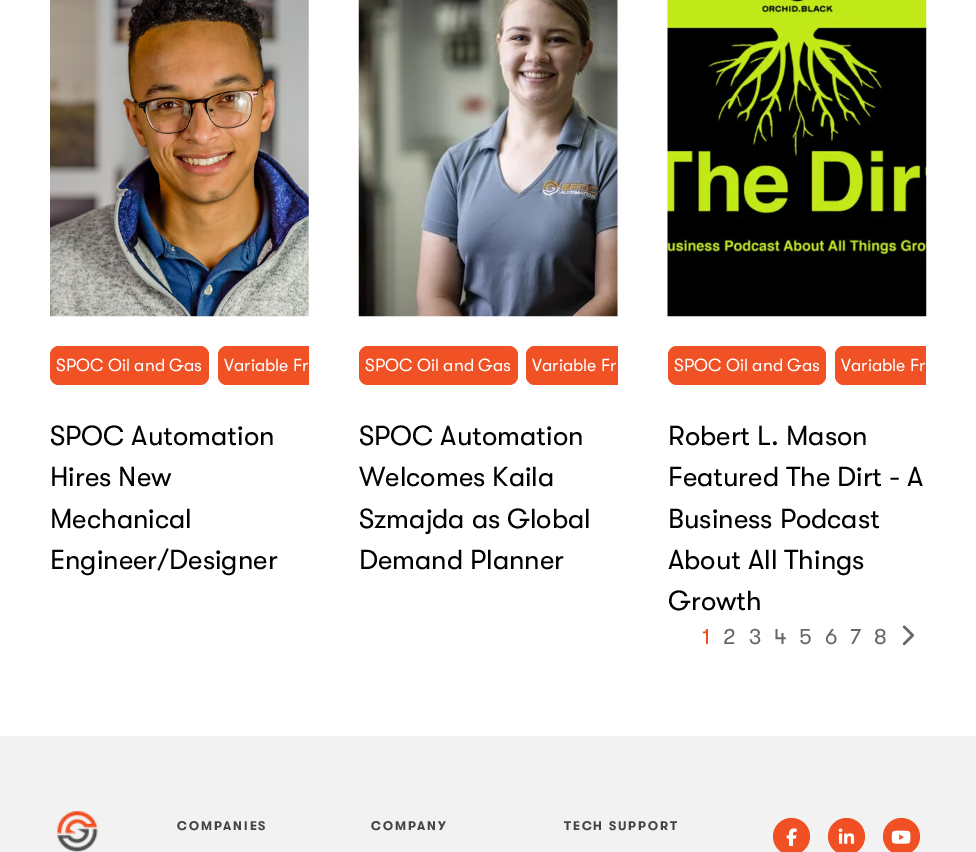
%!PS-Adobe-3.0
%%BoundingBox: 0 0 976 852
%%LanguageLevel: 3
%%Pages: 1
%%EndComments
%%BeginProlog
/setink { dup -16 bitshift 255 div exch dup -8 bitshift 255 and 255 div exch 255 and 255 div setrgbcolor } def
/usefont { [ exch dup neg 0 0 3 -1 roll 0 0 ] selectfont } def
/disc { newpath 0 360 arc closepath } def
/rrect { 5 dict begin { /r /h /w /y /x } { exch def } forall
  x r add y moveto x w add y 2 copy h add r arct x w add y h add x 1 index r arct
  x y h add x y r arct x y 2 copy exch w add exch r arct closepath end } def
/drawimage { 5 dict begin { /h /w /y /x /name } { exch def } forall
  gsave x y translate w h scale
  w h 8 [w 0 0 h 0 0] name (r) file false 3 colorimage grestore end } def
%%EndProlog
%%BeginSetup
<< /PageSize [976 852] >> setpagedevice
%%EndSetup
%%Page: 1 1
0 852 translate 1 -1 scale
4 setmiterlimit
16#FFFFFF setink
0 0 976 852 rectfill
(img1.raw) 50 0 259 317 drawimage
16#F05225 setink
50 346 159 39 9 rrect fill
/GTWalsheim-Regular 17.5 usefont
16#FFFFFF setink
56 371 moveto (SPOC Oil and Gas) show
16#F05225 setink
227 346 moveto 309 346 lineto 309 385 lineto 227 385 lineto 222 385 218 381 218 376 curveto 218 355 lineto 218 350 222 346 227 346 curveto closepath fill
16#FFFFFF setink
224 371 moveto (Variable Fr) show
/GTWalsheim-Regular 27.5 usefont
16#000000 setink
[
    [(SPOC Automation) 50 445]
    [(Hires New) 50 486]
    [(Mechanical) 50 528]
    [(Engineer/Designer) 50 569]
] { aload pop moveto show } forall
(img2.raw) 358 0 260 317 drawimage
16#F05225 setink
359 346 159 39 9 rrect fill
/GTWalsheim-Regular 17.5 usefont
16#FFFFFF setink
365 371 moveto (SPOC Oil and Gas) show
16#F05225 setink
535 346 moveto 618 346 lineto 618 385 lineto 535 385 lineto 530 385 526 381 526 376 curveto 526 355 lineto 526 350 530 346 535 346 curveto closepath fill
16#FFFFFF setink
532 371 moveto (Variable Fr) show
/GTWalsheim-Regular 27.5 usefont
16#000000 setink
[
    [(SPOC Automation) 359 445]
    [(Welcomes Kaila) 359 486]
    [(Szmajda as Global) 359 528]
    [(Demand Planner) 359 569]
] { aload pop moveto show } forall
(img3.raw) 667 0 260 317 drawimage
16#F05225 setink
668 346 158 39 9 rrect fill
/GTWalsheim-Regular 17.5 usefont
16#FFFFFF setink
674 371 moveto (SPOC Oil and Gas) show
16#F05225 setink
844 346 moveto 926 346 lineto 926 385 lineto 844 385 lineto 839 385 835 381 835 376 curveto 835 355 lineto 835 350 839 346 844 346 curveto closepath fill
16#FFFFFF setink
841 371 moveto (Variable Fr) show
/GTWalsheim-Regular 27.5 usefont
16#000000 setink
[
    [(Robert L. Mason) 668 445]
    [(Featured The Dirt - A) 668 486]
    [(Business Podcast) 668 528]
    [(About All Things) 668 569]
    [(Growth) 668 610]
] { aload pop moveto show } forall
/GTWalsheim-Regular 22 usefont
16#F05023 setink
702 644 moveto (1) show
16#676767 setink
[
    [(2) 723 644]
    [(3) 749 644]
    [(4) 774 644]
    [(5) 799 644]
    [(6) 825 644]
    [(7) 850 644]
    [(8) 874 644]
] { aload pop moveto show } forall
(img4.raw) 902 625 12 21 drawimage
16#F2F2F2 setink
0 736 976 116 rectfill
(img5.raw) 57 811 41 41 drawimage
/GTWalsheim-Bold 12.5 usefont
16#444444 setink
177 830 moveto 1.9 0 (COMPANIES) ashow
371 830 moveto 1.9 0 (COMPANY) ashow
564 830 moveto 1.9 0 (TECH SUPPORT) ashow
16#F05023 setink
791.5 836.5 18.5 disc fill
(img6.raw) 786 828 11 18 drawimage
846.5 836.5 18.5 disc fill
(img7.raw) 838 828 17 16 drawimage
901.5 836.5 18.5 disc fill
(img8.raw) 891 830 20 14 drawimage
showpage
%%EOF
